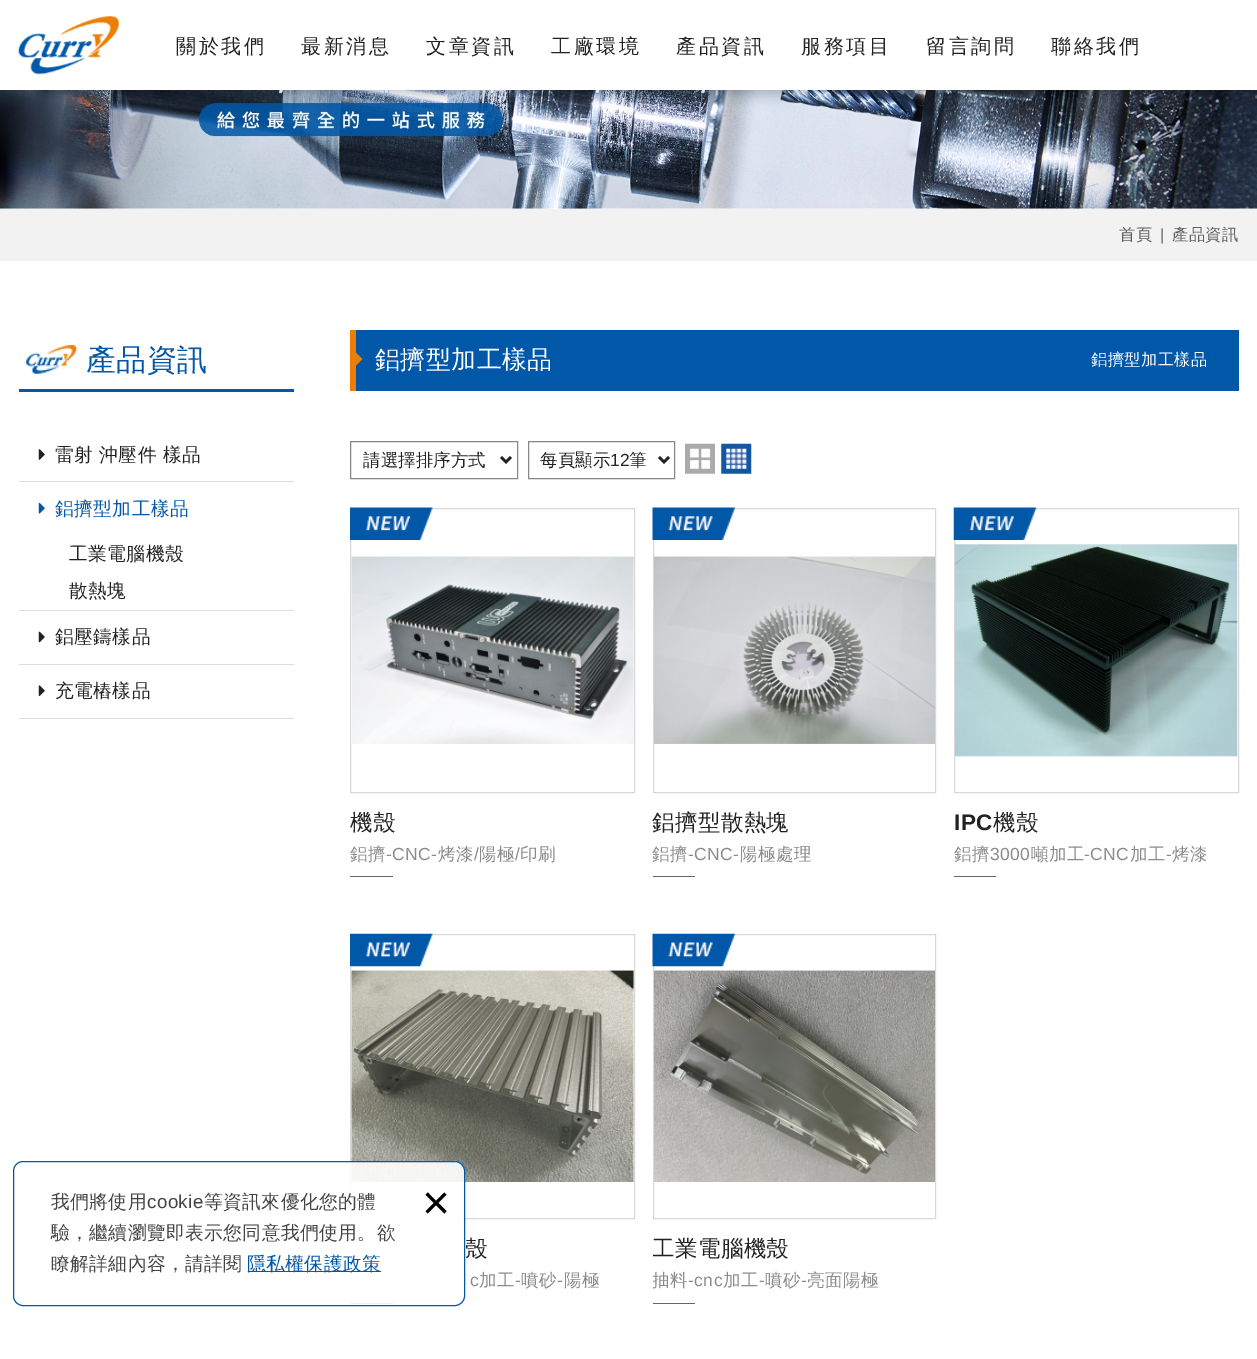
%!PS-Adobe-3.0
%%BoundingBox: 0 0 1257 1359
%%LanguageLevel: 3
%%Pages: 1
%%EndComments
%%BeginProlog
/setink { dup -16 bitshift 255 div exch dup -8 bitshift 255 and 255 div exch 255 and 255 div setrgbcolor } def
/usefont { [ exch dup neg 0 0 3 -1 roll 0 0 ] selectfont } def
/setalpha { dup .setfillconstantalpha .setstrokeconstantalpha } def
/rrect { 5 dict begin { /r /h /w /y /x } { exch def } forall
  x r add y moveto x w add y 2 copy h add r arct x w add y h add x 1 index r arct
  x y h add x y r arct x y 2 copy exch w add exch r arct closepath end } def
/softshadow { 12 dict begin { /a /b /q /h /w /y /x } { exch def } forall gsave /was 0 def
  9 -2 -9 { dup b mul 4 div /e exch def 1 sub .425 mul 2.718 exch exp 1 add a .99 .min exch div /now exch def
    1 1 now sub 1 was sub div sub setalpha /was now def
    w h .min e 2 mul add 0 gt { x e sub y e sub w e 2 mul add h e 2 mul add
      q e add b .6 mul add w h .min 2 div e add .min 0 .max rrect fill } if } for grestore end } def
/drawimage { 5 dict begin { /h /w /y /x /name } { exch def } forall
  gsave x y translate w h scale
  w h 8 [w 0 0 h 0 0] name (r) file false 3 colorimage grestore end } def
%%EndProlog
%%BeginSetup
<< /PageSize [1257 1359] /PageUsesTransparency true >> setpagedevice
%%EndSetup
%%Page: 1 1
0 .pushpdf14devicefilter
0 1359 translate 1 -1 scale
4 setmiterlimit
16#FFFFFF setink
0 0 1257 1359 rectfill
(img2.raw) 0 90 1257 119 drawimage
16#000000 setink
0 0 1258 90 0 6 0.2 softshadow
16#FFFFFF setink
0 0 1257 90 rectfill
(img1.raw) 18 16 101 59 drawimage
/WenQuanYiZenHei-Medium 20 usefont
16#222222 setink
176 53 moveto 2.5 0 (關於我們) ashow
301 53 moveto 2.5 0 (最新消息) ashow
426 53 moveto 2.5 0 (文章資訊) ashow
551 53 moveto 2.5 0 (工廠環境) ashow
676 53 moveto 2.5 0 (產品資訊) ashow
801 53 moveto 2.5 0 (服務項目) ashow
926 53 moveto 2.5 0 (留言詢問) ashow
1051 53 moveto 2.5 0 (聯絡我們) ashow
16#D8D8D8 setink
350.5 934.5 284 284 rectstroke
(img18.raw) 351 970 283 212 drawimage
16#666666 setink
350 1303 43 1 rectfill
0.9 setalpha
16#FFFFFF setink
13.5 1161.5 451 144 9.5 rrect fill
1 setalpha
16#0158A8 setink
13.5 1161.5 451 144 9.5 rrect stroke
/WenQuanYiZenHei-Medium 18.75 usefont
16#444444 setink
51 1208 moveto 0.4 0 (我們將使用) ashow
/LiberationSans-Regular 18.75 usefont
147 1208 moveto 0.4 0 (cookie) ashow
/WenQuanYiZenHei-Medium 18.75 usefont
204 1208 moveto 0.4 0 (等資訊來優化您的體) ashow
51 1239 moveto 0.4 0 (驗，繼續瀏覽即表示您同意我們使用。欲) ashow
51 1270 moveto 0.4 0 (瞭解詳細內容，請詳閱) ashow
16#0158A8 setink
248 1271 133 1 rectfill
247 1270 moveto 0.4 0 (隱私權保護政策) ashow
/LiberationSans-Regular 48 usefont
16#000000 setink
422 1219 moveto (×) show
16#F2F2F2 setink
0 209 1257 52 rectfill
/WenQuanYiZenHei-Medium 16.25 usefont
16#606060 setink
1119 240 moveto 0.4 0 (首頁) ashow
/LiberationSans-Regular 16.25 usefont
1160 240 moveto 0.4 0 (|) ashow
/WenQuanYiZenHei-Medium 16.25 usefont
1172 240 moveto 0.4 0 (產品資訊) ashow
(img3.raw) 26 345 51 29 drawimage
16#0158A8 setink
19 389 275 3 rectfill
/WenQuanYiZenHei-Medium 30 usefont
86 370 moveto 0.4 0 (產品資訊) ashow
16#DDDDDD setink
19 481 275 1 rectfill
(img4.raw) 38 449 7 11 drawimage
/WenQuanYiZenHei-Medium 18.75 usefont
16#222222 setink
55 461 moveto 0.4 0 (雷射 沖壓件 樣品) ashow
16#DDDDDD setink
19 610 275 1 rectfill
(img5.raw) 38 502 7 12 drawimage
16#0158A8 setink
55 515 moveto 0.4 0 (鋁擠型加工樣品) ashow
16#222222 setink
69 560 moveto 0.4 0 (工業電腦機殼) ashow
69 597 moveto 0.4 0 (散熱塊) ashow
16#DDDDDD setink
19 664 275 1 rectfill
(img6.raw) 38 631 7 12 drawimage
16#222222 setink
55 643 moveto 0.4 0 (鋁壓鑄樣品) ashow
16#DDDDDD setink
19 718 275 1 rectfill
(img7.raw) 38 685 7 11 drawimage
16#222222 setink
55 697 moveto 0.4 0 (充電樁樣品) ashow
16#0158A8 setink
356 330 883 61 rectfill
16#EC7E05 setink
350 330 6 61 rectfill
(img8.raw) 356 352 7 14 drawimage
/WenQuanYiZenHei-Medium 25 usefont
16#FFFFFF setink
375 368 moveto 0.4 0 (鋁擠型加工樣品) ashow
/WenQuanYiZenHei-Medium 16.25 usefont
1091 365 moveto 0.4 0 (鋁擠型加工樣品) ashow
16#888888 setink
350.5 441.5 167 37 rectstroke
16#222222 setink
2.5 setlinewidth
501 457 moveto 506 462 lineto 511 457 lineto stroke
/WenQuanYiZenHei-Medium 17.5 usefont
363 466 moveto (請選擇排序方式) show
16#888888 setink
1 setlinewidth
528.5 441.5 146 37 rectstroke
16#222222 setink
2.5 setlinewidth
659 457 moveto 664 462 lineto 669 457 lineto stroke
540 466 moveto (每頁顯示) show
/LiberationSans-Regular 17.5 usefont
610 466 moveto (12) show
/WenQuanYiZenHei-Medium 17.5 usefont
629 466 moveto (筆) show
(img9.raw) 685 443 30 31 drawimage
(img10.raw) 721 443 31 31 drawimage
16#D8D8D8 setink
1 setlinewidth
350.5 508.5 284 284 rectstroke
(img11.raw) 350 507 83 33 drawimage
(img12.raw) 351 556 283 188 drawimage
/WenQuanYiZenHei-Medium 22.5 usefont
16#222222 setink
350 830 moveto 0.4 0 (機殼) ashow
/WenQuanYiZenHei-Medium 17.5 usefont
16#8B8B8B setink
350 860 moveto 0.4 0 (鋁擠) ashow
/LiberationSans-Regular 17.5 usefont
386 860 moveto 0.4 0 (-CNC-) ashow
/WenQuanYiZenHei-Medium 17.5 usefont
438 860 moveto 0.4 0 (烤漆) ashow
/LiberationSans-Regular 17.5 usefont
474 860 moveto 0.4 0 (/) ashow
/WenQuanYiZenHei-Medium 17.5 usefont
479 860 moveto 0.4 0 (陽極) ashow
/LiberationSans-Regular 17.5 usefont
515 860 moveto 0.4 0 (/) ashow
/WenQuanYiZenHei-Medium 17.5 usefont
520 860 moveto 0.4 0 (印刷) ashow
16#666666 setink
350 876 43 1 rectfill
16#D8D8D8 setink
653.5 508.5 282 284 rectstroke
(img13.raw) 652 507 83 33 drawimage
(img14.raw) 654 556 281 188 drawimage
/WenQuanYiZenHei-Medium 22.5 usefont
16#222222 setink
652 830 moveto 0.4 0 (鋁擠型散熱塊) ashow
/WenQuanYiZenHei-Medium 17.5 usefont
16#8B8B8B setink
652 860 moveto 0.4 0 (鋁擠) ashow
/LiberationSans-Regular 17.5 usefont
688 860 moveto 0.4 0 (-CNC-) ashow
/WenQuanYiZenHei-Medium 17.5 usefont
740 860 moveto 0.4 0 (陽極處理) ashow
16#666666 setink
653 876 42 1 rectfill
16#D8D8D8 setink
954.5 508.5 284 284 rectstroke
(img15.raw) 953 507 84 33 drawimage
(img16.raw) 955 544 283 213 drawimage
/LiberationSans-Bold 22.5 usefont
16#222222 setink
954 830 moveto 0.4 0 (IPC) ashow
/WenQuanYiZenHei-Medium 22.5 usefont
993 830 moveto 0.4 0 (機殼) ashow
/WenQuanYiZenHei-Medium 17.5 usefont
16#8B8B8B setink
954 860 moveto 0.4 0 (鋁擠) ashow
/LiberationSans-Regular 17.5 usefont
990 860 moveto 0.4 0 (3000) ashow
/WenQuanYiZenHei-Medium 17.5 usefont
1031 860 moveto 0.4 0 (噸加工) ashow
/LiberationSans-Regular 17.5 usefont
1084 860 moveto 0.4 0 (-CNC) ashow
/WenQuanYiZenHei-Medium 17.5 usefont
1130 860 moveto 0.4 0 (加工) ashow
/LiberationSans-Regular 17.5 usefont
1166 860 moveto 0.4 0 (-) ashow
/WenQuanYiZenHei-Medium 17.5 usefont
1172 860 moveto 0.4 0 (烤漆) ashow
16#666666 setink
954 876 42 1 rectfill
(img17.raw) 350 933 83 34 drawimage
/WenQuanYiZenHei-Medium 22.5 usefont
16#222222 setink
465 1256 moveto 0.4 0 (殼) ashow
/LiberationSans-Regular 17.5 usefont
16#8B8B8B setink
470 1286 moveto 0.4 0 (c) ashow
/WenQuanYiZenHei-Medium 17.5 usefont
479 1286 moveto 0.4 0 (加工) ashow
/LiberationSans-Regular 17.5 usefont
515 1286 moveto 0.4 0 (-) ashow
/WenQuanYiZenHei-Medium 17.5 usefont
521 1286 moveto 0.4 0 (噴砂) ashow
/LiberationSans-Regular 17.5 usefont
557 1286 moveto 0.4 0 (-) ashow
/WenQuanYiZenHei-Medium 17.5 usefont
564 1286 moveto 0.4 0 (陽極) ashow
16#D8D8D8 setink
653.5 934.5 282 284 rectstroke
(img19.raw) 652 933 83 34 drawimage
(img20.raw) 653 970 282 212 drawimage
gsave
653 1231 283 35 rectclip
/WenQuanYiZenHei-Medium 22.5 usefont
16#222222 setink
652 1256 moveto 0.4 0 (工業電腦機殼) ashow
grestore
gsave
653 1266 283 28 rectclip
16#8B8B8B setink
652 1286 moveto 0.4 0 (抽料) ashow
grestore
/LiberationSans-Regular 17.5 usefont
16#8B8B8B setink
688 1286 moveto 0.4 0 (-cnc) ashow
/WenQuanYiZenHei-Medium 17.5 usefont
723 1286 moveto 0.4 0 (加工) ashow
/LiberationSans-Regular 17.5 usefont
759 1286 moveto 0.4 0 (-) ashow
/WenQuanYiZenHei-Medium 17.5 usefont
765 1286 moveto 0.4 0 (噴砂) ashow
/LiberationSans-Regular 17.5 usefont
801 1286 moveto 0.4 0 (-) ashow
/WenQuanYiZenHei-Medium 17.5 usefont
807 1286 moveto 0.4 0 (亮面陽極) ashow
16#666666 setink
653 1303 42 1 rectfill
.poppdf14devicefilter showpage
%%EOF
